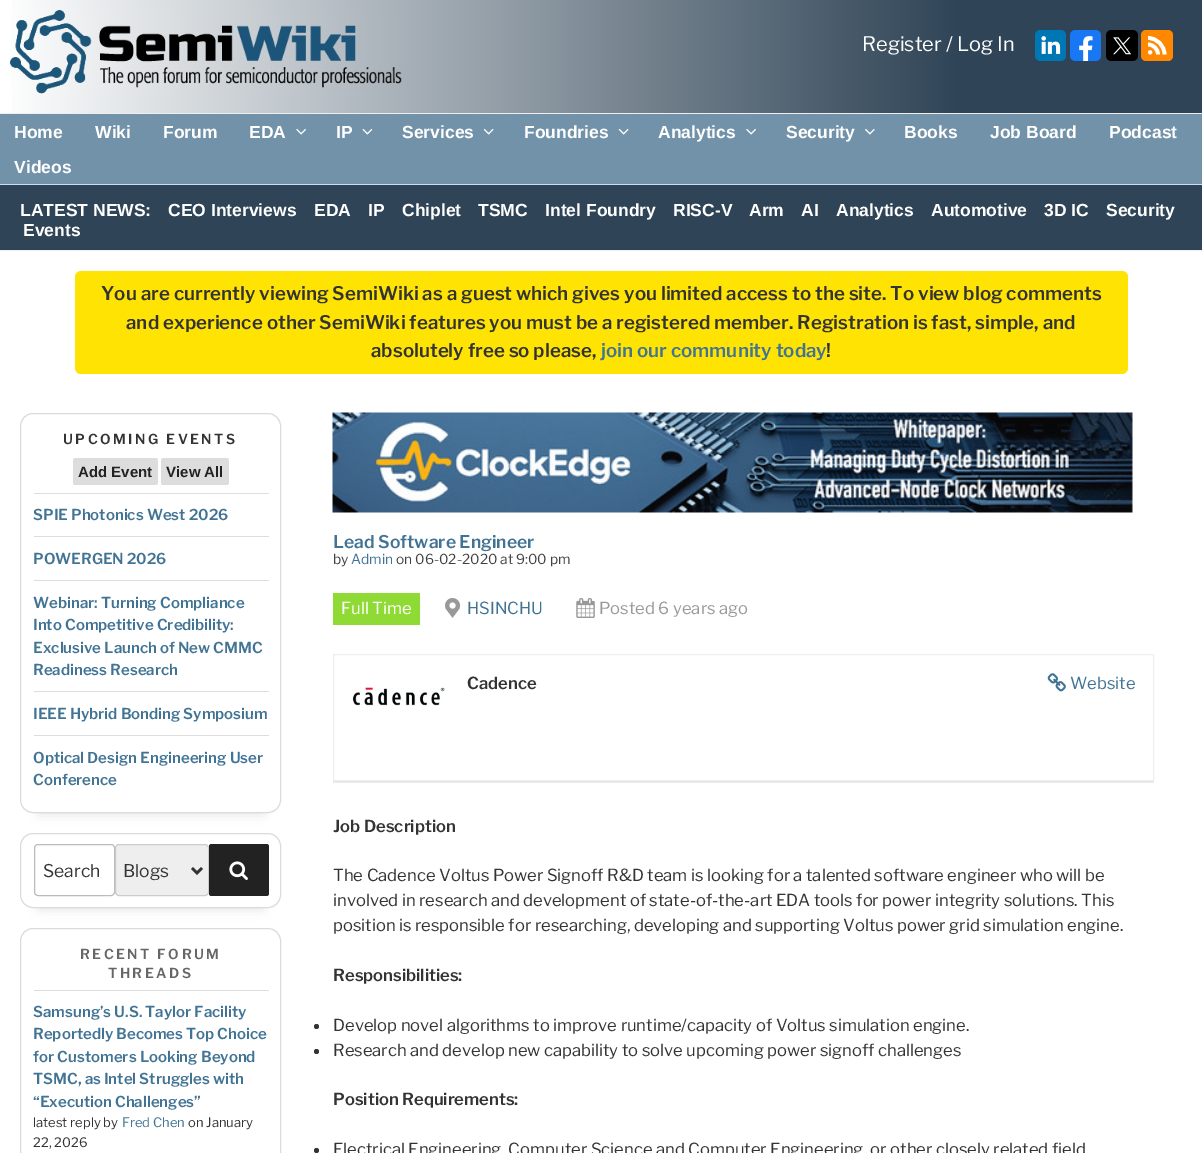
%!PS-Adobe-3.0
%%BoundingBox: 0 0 1202 1153
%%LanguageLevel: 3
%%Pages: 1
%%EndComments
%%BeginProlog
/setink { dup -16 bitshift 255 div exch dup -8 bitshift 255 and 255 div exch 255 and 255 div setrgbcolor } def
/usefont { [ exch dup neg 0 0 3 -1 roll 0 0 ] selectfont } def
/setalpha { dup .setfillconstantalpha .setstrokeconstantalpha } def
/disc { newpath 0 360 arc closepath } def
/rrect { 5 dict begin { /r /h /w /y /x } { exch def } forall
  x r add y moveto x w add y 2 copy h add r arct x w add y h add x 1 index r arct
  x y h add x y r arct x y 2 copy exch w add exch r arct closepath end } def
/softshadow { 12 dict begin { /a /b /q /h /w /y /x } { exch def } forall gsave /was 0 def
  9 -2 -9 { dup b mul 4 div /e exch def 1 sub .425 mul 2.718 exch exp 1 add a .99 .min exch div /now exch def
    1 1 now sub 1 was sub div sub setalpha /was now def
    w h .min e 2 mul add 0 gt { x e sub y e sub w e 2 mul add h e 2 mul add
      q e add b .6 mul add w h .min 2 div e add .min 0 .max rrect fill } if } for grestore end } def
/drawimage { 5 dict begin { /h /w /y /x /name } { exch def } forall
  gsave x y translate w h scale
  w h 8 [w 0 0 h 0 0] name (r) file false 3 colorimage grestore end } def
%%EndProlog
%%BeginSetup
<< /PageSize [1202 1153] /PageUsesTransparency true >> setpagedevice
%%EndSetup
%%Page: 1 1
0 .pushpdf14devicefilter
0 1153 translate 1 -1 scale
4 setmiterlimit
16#FFFFFF setink
0 0 1202 1153 rectfill
gsave 12 0 moveto 1202 0 lineto 1202 113 lineto 12 113 lineto closepath clip newpath
<< /ShadingType 2 /ColorSpace /DeviceRGB /Coords [0 56 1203 56] /Extend [true true] /Function << /FunctionType 3 /Domain [0 1] /Functions [<< /FunctionType 2 /Domain [0 1] /C0 [1 1 1] /C1 [0.184 0.267 0.337] /N 1 >> << /FunctionType 2 /Domain [0 1] /C0 [0.184 0.267 0.337] /C1 [0.184 0.267 0.337] /N 1 >>] /Bounds [0.8] /Encode [0 1 0 1] >> >> shfill grestore
(img1.raw) 10 10 392 84 drawimage
/LibreFranklin-Regular 20 usefont
862 51 moveto (Register / Log In) show
(img2.raw) 1035 30 31 31 drawimage
(img3.raw) 1070 30 31 31 drawimage
(img4.raw) 1106 30 32 31 drawimage
16#FF8800 setink
1141 30 32 31 5 rrect fill
16#FFFFFF setink
1150.1 52.4 2.1 disc fill
3.7 setlinewidth
1148 44.5 moveto 1153.5 44.5 1158 49 1158 54.5 curveto 1164.5 54.5 moveto 1164.5 45.5 1157 38 1148 38 curveto stroke
[
    [0 114 1202 70 16#7192A8]
    [0 113 1202 1 16#EEEEEE]
    [0 250 1202 1 16#EEEEEE]
] { aload pop setink rectfill } forall
/LiberationSans-Bold 17.5 usefont
16#FFFFFF setink
[
    [(Home) 14 138]
    [(Wiki) 95 138]
    [(Forum) 163 138]
    [(EDA) 249 138]
] { aload pop moveto show } forall
(img5.raw) 296 128 10 7 drawimage
336 138 moveto (IP) show
(img6.raw) 362 128 11 7 drawimage
402 138 moveto (Services) show
(img7.raw) 483 128 11 7 drawimage
524 138 moveto (Foundries) show
(img7.raw) 618 128 11 7 drawimage
658 138 moveto (Analytics) show
(img5.raw) 746 128 10 7 drawimage
786 138 moveto (Security) show
(img8.raw) 865 128 10 7 drawimage
[
    [(Books) 904 138]
    [(Job Board) 990 138]
    [(Podcast) 1109 138]
    [(Videos) 14 173]
] { aload pop moveto show } forall
16#2F4456 setink
0 185 1202 65 rectfill
16#CEDFEB setink
0 184 1202 1 rectfill
16#FFFFFF setink
[
    [(LATEST NEWS:) 20 216]
    [(CEO Interviews) 168 216]
    [(EDA) 314 216]
    [(IP) 368 216]
    [(Chiplet) 402 216]
    [(TSMC) 478 216]
    [(Intel Foundry) 545 216]
    [(RISC-V) 673 216]
    [(Arm) 749 216]
    [(AI) 801 216]
    [(Analytics) 836 216]
    [(Automotive) 931 216]
    [(3D IC) 1044 216]
    [(Security) 1106 216]
    [(Events) 23 236]
] { aload pop moveto show } forall
16#FFE303 setink
75 271 1053 103 6 rrect fill
/LibreFranklin-SemiBold 18.75 usefont
16#333333 setink
[
    [(You are currently viewing SemiWiki as a guest which gives you limited access to the site. To view blog comments) 101 300]
    [(and experience other SemiWiki features you must be a registered member. Registration is fast, simple, and) 126 329]
    [(absolutely free so please,) 371 357]
] { aload pop moveto show } forall
16#417394 setink
601 357 moveto (join our community today) show
16#333333 setink
826 357 moveto (!) show
gsave
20 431 moveto 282 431 lineto 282 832 lineto 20 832 lineto closepath 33 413 moveto 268 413 lineto 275 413 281 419 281 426 curveto 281 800 lineto 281 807 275 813 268 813 curveto 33 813 lineto 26 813 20 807 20 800 curveto 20 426 lineto 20 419 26 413 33 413 curveto closepath eoclip newpath
16#DBDBDB setink
39 450 224 363 0 6 1 softshadow
grestore
16#DBDBDB setink
1 setlinewidth
20.5 413.5 260 399 12.5 rrect stroke
/LibreFranklin-SemiBold 13.75 usefont
16#333333 setink
63 444 moveto 2.5 0 (UPCOMING EVENTS) ashow
16#DDDDDD setink
73 458 85 27 2.5 rrect fill
/LiberationSans-Bold 15 usefont
16#222222 setink
78 477 moveto (Add Event) show
16#DDDDDD setink
161 458 68 27 2.5 rrect fill
16#222222 setink
166 477 moveto (View All) show
16#DDDDDD setink
34 493 235 1 rectfill
/LibreFranklin-SemiBold 15 usefont
16#417394 setink
33 520 moveto (SPIE Photonics West 2026) show
16#DDDDDD setink
34 536 235 1 rectfill
16#417394 setink
33 564 moveto (POWERGEN 2026) show
16#DDDDDD setink
34 580 235 1 rectfill
16#417394 setink
[
    [(Webinar: Turning Compliance) 33 608]
    [(Into Competitive Credibility:) 33 630]
    [(Exclusive Launch of New CMMC) 33 653]
    [(Readiness Research) 33 675]
] { aload pop moveto show } forall
16#DDDDDD setink
34 691 235 1 rectfill
16#417394 setink
33 719 moveto (IEEE Hybrid Bonding Symposium) show
16#DDDDDD setink
34 735 235 1 rectfill
16#417394 setink
33 763 moveto (Optical Design Engineering User) show
33 785 moveto (Conference) show
gsave
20 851 moveto 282 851 lineto 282 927 lineto 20 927 lineto closepath 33 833 moveto 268 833 lineto 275 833 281 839 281 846 curveto 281 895 lineto 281 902 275 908 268 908 curveto 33 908 lineto 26 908 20 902 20 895 curveto 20 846 lineto 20 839 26 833 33 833 curveto closepath eoclip newpath
16#DBDBDB setink
39 870 224 38 0 6 1 softshadow
grestore
16#DBDBDB setink
20.5 833.5 260 74 12.5 rrect stroke
16#BBBBBB setink
34.5 844.5 80 51 3.5 rrect stroke
/LibreFranklin-Regular 17.5 usefont
16#333333 setink
43 877 moveto (Search) show
16#EEEEEE setink
115.5 844.5 93 51 3.5 rrect gsave fill grestore
16#CCCCCC setink
stroke
16#333333 setink
2.5 setlinewidth
192 868 moveto 197 873 lineto 202 868 lineto stroke
123 877 moveto (Blogs) show
16#222222 setink
209 844 60 52 2.5 rrect fill
(img9.raw) 229 861 19 19 drawimage
16#DBDBDB setink
1 setlinewidth
20.5 928.5 260 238 12.5 rrect stroke
/LibreFranklin-SemiBold 13.75 usefont
16#666666 setink
80 959 moveto 2.5 0 (RECENT FORUM) ashow
108 978 moveto 2.5 0 (THREADS) ashow
16#DDDDDD setink
34 990 235 1 rectfill
/LibreFranklin-SemiBold 15 usefont
16#417394 setink
[
    [(Samsung’s U.S. Taylor Facility) 33 1017]
    [(Reportedly Becomes Top Choice) 33 1039]
    [(for Customers Looking Beyond) 33 1062]
    [(TSMC, as Intel Struggles with) 33 1084]
    [(“Execution Challenges”) 33 1107]
] { aload pop moveto show } forall
/LibreFranklin-Regular 13 usefont
16#333333 setink
33 1127 moveto (latest reply by) show
16#417394 setink
122 1127 moveto (Fred Chen) show
16#333333 setink
188 1127 moveto (on January) show
33 1147 moveto (22, 2026) show
(img10.raw) 332 412 801 101 drawimage
/LibreFranklin-SemiBold 17.5 usefont
16#417394 setink
333 548 moveto (Lead Software Engineer) show
/LibreFranklin-Regular 13.75 usefont
16#414141 setink
333 564 moveto (by) show
16#417394 setink
351 564 moveto (Admin) show
16#414141 setink
396 564 moveto (on 06-02-2020 at 9:00 pm) show
16#90DA36 setink
333 593 87 32 rectfill
/LibreFranklin-Regular 16.6 usefont
16#FFFFFF setink
341 614 moveto (Full Time) show
(img11.raw) 445 598 16 20 drawimage
16#417394 setink
467 614 moveto (HSINCHU) show
(img12.raw) 576 598 19 20 drawimage
16#999999 setink
599 614 moveto (Posted 6 years ago) show
gsave
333 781 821 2 rectclip
16#000000 setink
333 655 821 128 0 0.5 0.1 softshadow
grestore
16#EEEEEE setink
333.5 654.5 820 126 rectstroke
/LibreFranklin-SemiBold 16.6 usefont
16#333333 setink
467 689 moveto (Cadence) show
(img13.raw) 1047 673 19 19 drawimage
/LibreFranklin-Regular 16.6 usefont
16#417394 setink
1070 689 moveto (Website) show
(img14.raw) 352 687 93 19 drawimage
/LibreFranklin-SemiBold 16.6 usefont
16#333333 setink
333 832 moveto (Job Description) show
/LibreFranklin-Regular 16.6 usefont
[
    [(The Cadence Voltus Power Signoff R&D team is looking for a talented software engineer who will be) 333 881]
    [(involved in research and development of state-of-the-art EDA tools for power integrity solutions. This) 333 906]
    [(position is responsible for researching, developing and supporting Voltus power grid simulation engine.) 333 931]
] { aload pop moveto show } forall
/LibreFranklin-SemiBold 16.6 usefont
333 981 moveto (Responsibilities:) show
316.5 1026.5 2.5 disc fill
/LibreFranklin-Regular 16.6 usefont
333 1031 moveto (Develop novel algorithms to improve runtime/capacity of Voltus simulation engine.) show
316.5 1051.5 2.5 disc fill
333 1056 moveto (Research and develop new capability to solve upcoming power signoff challenges) show
/LibreFranklin-SemiBold 16.6 usefont
333 1105 moveto (Position Requirements:) show
316.5 1150.5 2.5 disc fill
/LibreFranklin-Regular 16.6 usefont
333 1155 moveto (Electrical Engineering, Computer Science and Computer Engineering, or other closely related field) show
.poppdf14devicefilter showpage
%%EOF
